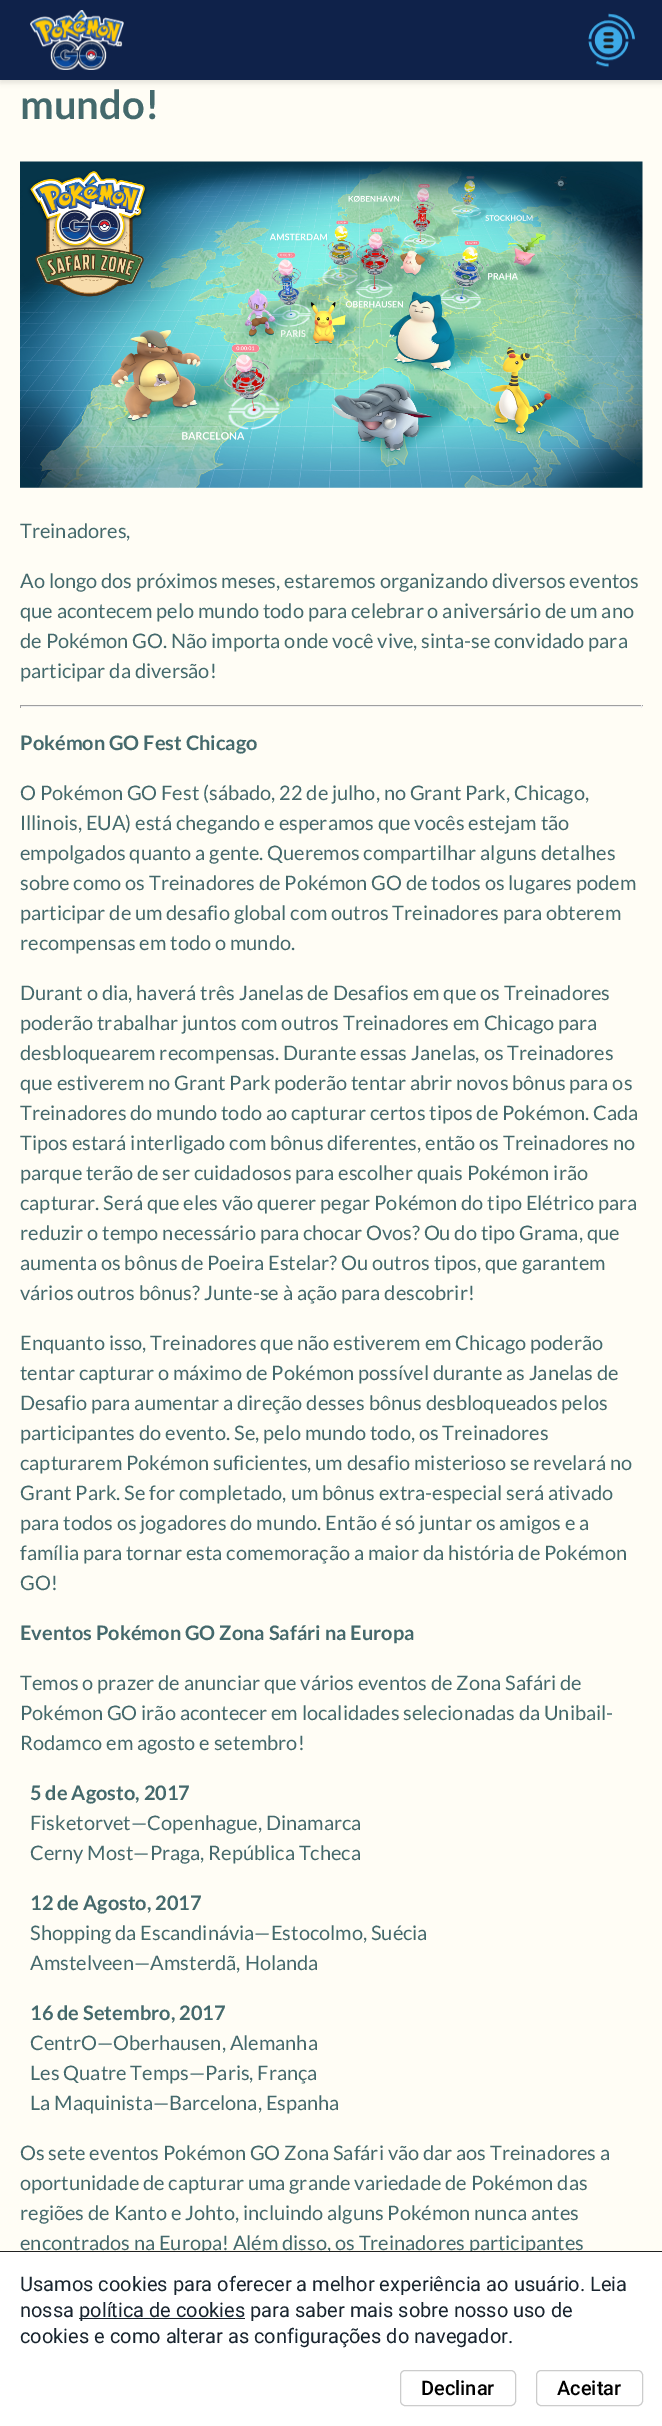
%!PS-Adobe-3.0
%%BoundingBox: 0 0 662 2426
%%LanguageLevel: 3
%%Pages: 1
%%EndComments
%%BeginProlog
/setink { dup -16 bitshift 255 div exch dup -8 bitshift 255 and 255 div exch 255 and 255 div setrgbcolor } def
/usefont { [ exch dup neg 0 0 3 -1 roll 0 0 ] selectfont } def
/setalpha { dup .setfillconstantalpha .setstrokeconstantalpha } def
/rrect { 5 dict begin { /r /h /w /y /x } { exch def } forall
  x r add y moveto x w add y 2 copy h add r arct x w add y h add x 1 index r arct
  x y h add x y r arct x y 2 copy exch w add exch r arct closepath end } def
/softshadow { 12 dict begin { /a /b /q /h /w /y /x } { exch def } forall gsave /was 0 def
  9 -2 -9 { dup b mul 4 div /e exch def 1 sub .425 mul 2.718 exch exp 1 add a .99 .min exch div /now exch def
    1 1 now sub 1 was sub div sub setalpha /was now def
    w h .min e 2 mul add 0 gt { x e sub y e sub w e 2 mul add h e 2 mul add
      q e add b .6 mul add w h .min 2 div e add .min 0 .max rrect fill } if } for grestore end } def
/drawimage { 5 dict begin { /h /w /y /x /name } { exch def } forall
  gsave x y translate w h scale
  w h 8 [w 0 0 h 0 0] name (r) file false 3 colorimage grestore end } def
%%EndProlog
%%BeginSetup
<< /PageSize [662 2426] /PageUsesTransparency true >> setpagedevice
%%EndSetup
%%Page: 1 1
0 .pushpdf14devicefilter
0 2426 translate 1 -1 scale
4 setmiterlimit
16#FFFDF5 setink
0 0 662 2426 rectfill
16#000000 setink
0 3 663 80 0 2.5 0.1 softshadow
16#0F224A setink
0 0 662 80 rectfill
(img1.raw) 30 10 94 60 drawimage
(img2.raw) 588 13 47 55 drawimage
/Lato-Bold 40 usefont
16#44696C setink
20 119 moveto (mundo!) show
(img3.raw) 20 161 623 327 drawimage
/Lato-Regular 20 usefont
[
    [(Treinadores,) 20 538]
    [(Ao longo dos próximos meses, estaremos organizando diversos eventos) 20 588]
    [(que acontecem pelo mundo todo para celebrar o aniversário de um ano) 20 618]
    [(de Pokémon GO. Não importa onde você vive, sinta-se convidado para) 20 648]
    [(participar da diversão!) 20 678]
] { aload pop moveto show } forall
[
    [20 705 623 1 16#9F9F9F]
    [641 705 1 3 16#EEEEEE]
    [20 706 623 1 16#EEEEEE]
    [20 705 1 3 16#9F9F9F]
] { aload pop setink rectfill } forall
/Lato-Bold 20 usefont
16#44696C setink
20 750 moveto (Pokémon GO Fest Chicago) show
/Lato-Regular 20 usefont
[
    [(O Pokémon GO Fest \(sábado, 22 de julho, no Grant Park, Chicago,) 20 800]
    [(Illinois, EUA\) está chegando e esperamos que vocês estejam tão) 20 830]
    [(empolgados quanto a gente. Queremos compartilhar alguns detalhes) 20 860]
    [(sobre como os Treinadores de Pokémon GO de todos os lugares podem) 20 890]
    [(participar de um desafio global com outros Treinadores para obterem) 20 920]
    [(recompensas em todo o mundo.) 20 950]
    [(Durant o dia, haverá três Janelas de Desafios em que os Treinadores) 20 1000]
    [(poderão trabalhar juntos com outros Treinadores em Chicago para) 20 1030]
    [(desbloquearem recompensas. Durante essas Janelas, os Treinadores) 20 1060]
    [(que estiverem no Grant Park poderão tentar abrir novos bônus para os) 20 1090]
    [(Treinadores do mundo todo ao capturar certos tipos de Pokémon. Cada) 20 1120]
    [(Tipos estará interligado com bônus diferentes, então os Treinadores no) 20 1150]
    [(parque terão de ser cuidadosos para escolher quais Pokémon irão) 20 1180]
    [(capturar. Será que eles vão querer pegar Pokémon do tipo Elétrico para) 20 1210]
    [(reduzir o tempo necessário para chocar Ovos? Ou do tipo Grama, que) 20 1240]
    [(aumenta os bônus de Poeira Estelar? Ou outros tipos, que garantem) 20 1270]
    [(vários outros bônus? Junte-se à ação para descobrir!) 20 1300]
    [(Enquanto isso, Treinadores que não estiverem em Chicago poderão) 20 1350]
    [(tentar capturar o máximo de Pokémon possível durante as Janelas de) 20 1380]
    [(Desafio para aumentar a direção desses bônus desbloqueados pelos) 20 1410]
    [(participantes do evento. Se, pelo mundo todo, os Treinadores) 20 1440]
    [(capturarem Pokémon suficientes, um desafio misterioso se revelará no) 20 1470]
    [(Grant Park. Se for completado, um bônus extra-especial será ativado) 20 1500]
    [(para todos os jogadores do mundo. Então é só juntar os amigos e a) 20 1530]
    [(família para tornar esta comemoração a maior da história de Pokémon) 20 1560]
    [(GO!) 20 1590]
] { aload pop moveto show } forall
/Lato-Bold 20 usefont
20 1640 moveto (Eventos Pokémon GO Zona Safári na Europa) show
/Lato-Regular 20 usefont
[
    [(Temos o prazer de anunciar que vários eventos de Zona Safári de) 20 1690]
    [(Pokémon GO irão acontecer em localidades selecionadas da Unibail-) 20 1720]
    [(Rodamco em agosto e setembro!) 20 1750]
] { aload pop moveto show } forall
/Lato-Bold 20 usefont
30 1800 moveto (5 de Agosto, 2017) show
/Lato-Regular 20 usefont
30 1830 moveto (Fisketorvet—Copenhague, Dinamarca) show
30 1860 moveto (Cerny Most—Praga, República Tcheca) show
/Lato-Bold 20 usefont
30 1910 moveto (12 de Agosto, 2017) show
/Lato-Regular 20 usefont
30 1940 moveto (Shopping da Escandinávia—Estocolmo, Suécia) show
30 1970 moveto (Amstelveen—Amsterdã, Holanda) show
/Lato-Bold 20 usefont
30 2020 moveto (16 de Setembro, 2017) show
/Lato-Regular 20 usefont
[
    [(CentrO—Oberhausen, Alemanha) 30 2050]
    [(Les Quatre Temps—Paris, França) 30 2080]
    [(La Maquinista—Barcelona, Espanha) 30 2110]
    [(Os sete eventos Pokémon GO Zona Safári vão dar aos Treinadores a) 20 2160]
    [(oportunidade de capturar uma grande variedade de Pokémon das) 20 2190]
    [(regiões de Kanto e Johto, incluindo alguns Pokémon nunca antes) 20 2220]
    [(encontrados na Europa! Além disso, os Treinadores participantes) 20 2250]
] { aload pop moveto show } forall
16#FFFFFF setink
0 2252 662 174 rectfill
16#212121 setink
0 2251 662 1 rectfill
/Roboto-Regular 20 usefont
16#18242E setink
20 2291 moveto (Usamos cookies para oferecer a melhor experiência ao usuário. Leia) show
20 2317 moveto (nossa) show
79 2318 166 1 rectfill
79 2317 moveto (política de cookies para saber mais sobre nosso uso de) show
20 2343 moveto (cookies e como alterar as configurações do navegador.) show
16#CCCCCC setink
400.5 2370.5 115 35 4.5 rrect stroke
/Roboto-Medium 20 usefont
16#000000 setink
421 2395 moveto (Declinar) show
16#CCCCCC setink
536.5 2370.5 106 35 4.5 rrect stroke
16#000000 setink
557 2395 moveto (Aceitar) show
.poppdf14devicefilter showpage
%%EOF
